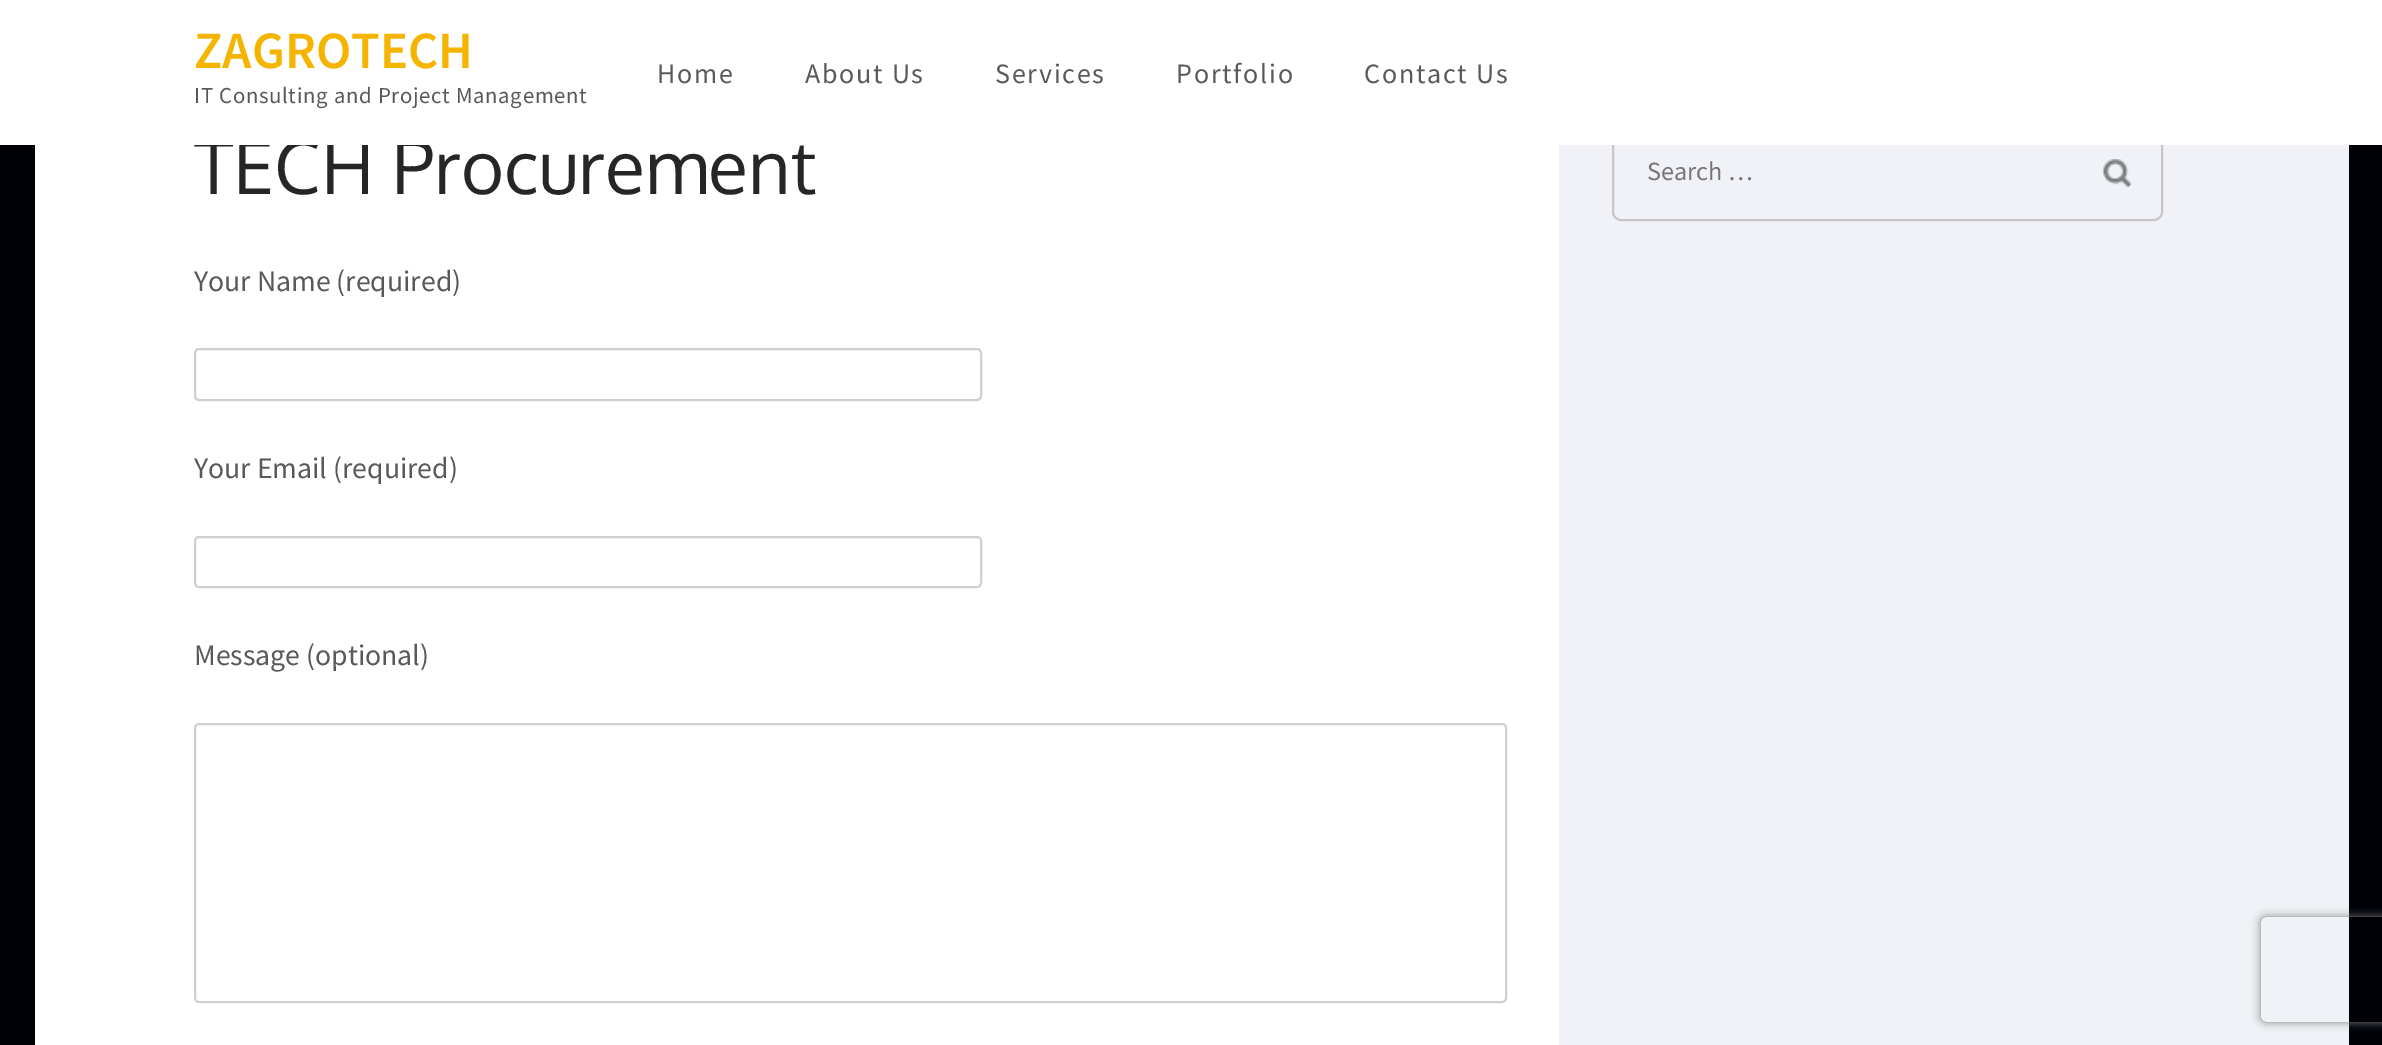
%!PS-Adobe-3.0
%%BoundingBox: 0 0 2382 1045
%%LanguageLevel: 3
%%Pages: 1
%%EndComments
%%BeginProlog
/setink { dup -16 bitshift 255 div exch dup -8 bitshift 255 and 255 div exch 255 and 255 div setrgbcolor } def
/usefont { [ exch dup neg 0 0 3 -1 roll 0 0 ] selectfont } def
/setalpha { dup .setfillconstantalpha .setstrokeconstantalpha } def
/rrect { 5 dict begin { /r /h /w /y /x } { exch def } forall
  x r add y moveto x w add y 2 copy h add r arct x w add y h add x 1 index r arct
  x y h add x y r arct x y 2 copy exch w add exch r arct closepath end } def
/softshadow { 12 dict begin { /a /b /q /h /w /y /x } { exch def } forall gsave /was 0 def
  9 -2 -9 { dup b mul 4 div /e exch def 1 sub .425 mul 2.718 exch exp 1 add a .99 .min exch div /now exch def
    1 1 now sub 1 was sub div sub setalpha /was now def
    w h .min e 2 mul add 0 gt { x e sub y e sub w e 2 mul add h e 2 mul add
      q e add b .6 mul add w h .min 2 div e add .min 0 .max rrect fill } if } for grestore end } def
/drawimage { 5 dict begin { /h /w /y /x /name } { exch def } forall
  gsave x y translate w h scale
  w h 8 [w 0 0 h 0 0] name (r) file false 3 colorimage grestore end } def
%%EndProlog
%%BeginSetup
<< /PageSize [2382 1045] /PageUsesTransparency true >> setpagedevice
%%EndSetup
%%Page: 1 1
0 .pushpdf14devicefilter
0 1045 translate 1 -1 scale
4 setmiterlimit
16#000107 setink
0 0 2382 1045 rectfill
16#FFFFFF setink
35 145 1524 900 rectfill
/Oxygen-Regular 73.5 usefont
16#252626 setink
194 194 moveto (TECH Procurement) show
16#F0F2F7 setink
1559 145 790 900 rectfill
16#C7C7C9 setink
2 setlinewidth
1613 127 549 93 8 rrect stroke
16#FFFFFF setink
0 0 2382 145 rectfill
/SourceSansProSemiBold-SemiBold 52.5 usefont
16#F4B400 setink
194 68 moveto (ZAGROTECH) show
/SourceSansPro-Regular 22.75 usefont
16#59595B setink
194 103 moveto 0.7 0 (IT Consulting and Project Management) ashow
/SourceSansPro-Regular 28 usefont
657 83 moveto 1.75 0 (Home) ashow
805 83 moveto 1.75 0 (About Us) ashow
995 83 moveto 1.75 0 (Services) ashow
1176 83 moveto 1.75 0 (Portfolio) ashow
1364 83 moveto 1.75 0 (Contact Us) ashow
/SourceSansPro-Regular 29.75 usefont
194 291 moveto (Your Name \(required\)) show
16#CFCFD4 setink
195 349 786 51 4 rrect stroke
16#59595B setink
194 478 moveto (Your Email \(required\)) show
16#CFCFD4 setink
195 537 786 50 4 rrect stroke
16#59595B setink
194 665 moveto (Message \(optional\)) show
16#CFCFD4 setink
195 724 1311 278 4 rrect stroke
/SourceSansPro-Regular 26.25 usefont
16#757575 setink
1647 180 moveto (Search …) show
(img1.raw) 2103 159 29 29 drawimage
gsave
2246 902 moveto 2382 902 lineto 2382 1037 lineto 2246 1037 lineto closepath 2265 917 moveto 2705 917 lineto 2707 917 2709 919 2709 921 curveto 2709 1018 lineto 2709 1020 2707 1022 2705 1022 curveto 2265 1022 lineto 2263 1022 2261 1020 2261 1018 curveto 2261 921 lineto 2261 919 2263 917 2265 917 curveto closepath eoclip newpath
16#808080 setink
2261 917 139 105 4 4.5 1 softshadow
grestore
.poppdf14devicefilter showpage
%%EOF
